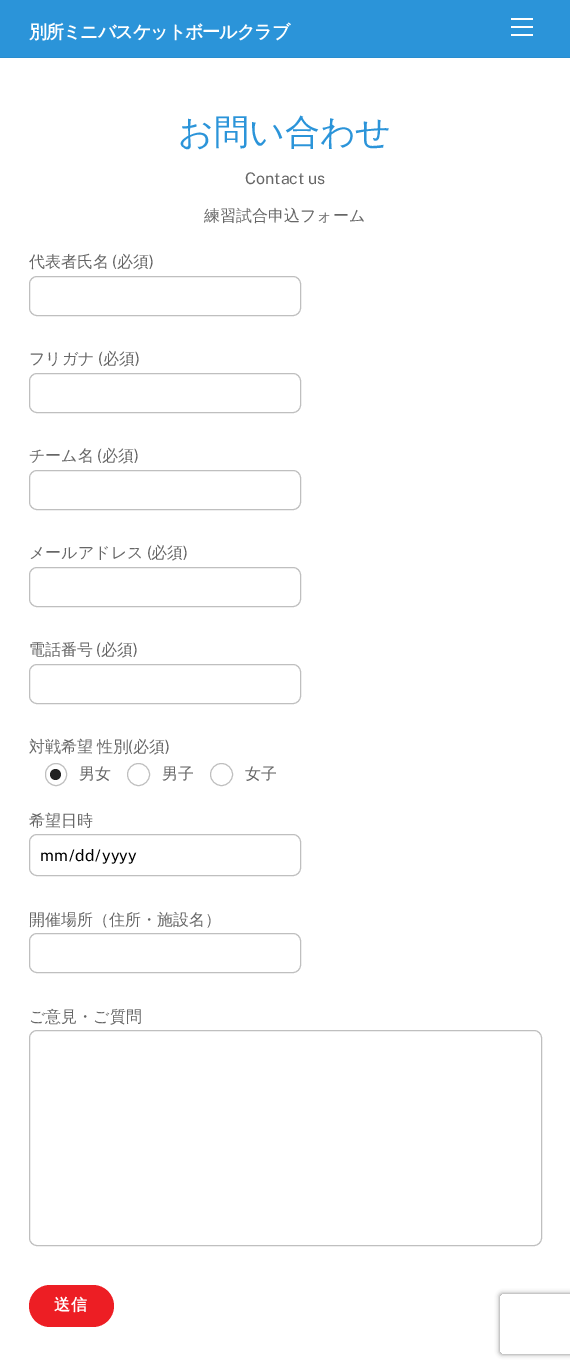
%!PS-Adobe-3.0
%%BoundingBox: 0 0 570 1368
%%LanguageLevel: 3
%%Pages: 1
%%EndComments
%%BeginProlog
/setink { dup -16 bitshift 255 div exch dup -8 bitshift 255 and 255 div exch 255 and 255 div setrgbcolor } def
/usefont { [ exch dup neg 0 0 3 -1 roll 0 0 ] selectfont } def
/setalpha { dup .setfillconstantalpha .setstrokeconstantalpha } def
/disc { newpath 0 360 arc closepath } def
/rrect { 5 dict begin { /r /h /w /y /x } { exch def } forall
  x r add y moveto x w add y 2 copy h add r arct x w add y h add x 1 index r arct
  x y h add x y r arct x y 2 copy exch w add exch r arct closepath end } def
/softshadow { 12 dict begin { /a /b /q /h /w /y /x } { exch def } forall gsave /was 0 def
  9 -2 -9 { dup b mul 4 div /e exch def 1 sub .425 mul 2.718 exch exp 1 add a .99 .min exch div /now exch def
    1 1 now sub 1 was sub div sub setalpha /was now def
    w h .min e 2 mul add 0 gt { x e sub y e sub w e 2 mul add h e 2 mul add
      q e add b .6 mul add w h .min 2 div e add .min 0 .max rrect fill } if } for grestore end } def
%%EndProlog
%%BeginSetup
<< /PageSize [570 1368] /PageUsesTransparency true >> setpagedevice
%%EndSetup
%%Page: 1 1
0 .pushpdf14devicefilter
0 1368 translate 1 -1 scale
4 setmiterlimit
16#FFFFFF setink
0 0 570 1368 rectfill
16#2B94D9 setink
0 0 570 57 rectfill
16#298DCE setink
0 57 570 1 rectfill
/WenQuanYiZenHei-Bold 18 usefont
16#FFFFFF setink
29 38 moveto -1 0 (別所ミニバスケットボールクラブ) ashow
[
    [511 34 22 2 16#FFFFFF]
    [511 18 22 2 16#FFFFFF]
    [511 26 22 2 16#FFFFFF]
] { aload pop setink rectfill } forall
/WenQuanYiZenHei-Medium 35 usefont
16#2B94D9 setink
178 144 moveto (お問い合わせ) show
/PublicSans-Regular 16 usefont
16#666666 setink
245 184 moveto (Contact us) show
/WenQuanYiZenHei-Medium 16 usefont
204 221 moveto (練習試合申込フォーム) show
29 267 moveto (代表者氏名) show
/PublicSans-Regular 16 usefont
112 267 moveto (\() show
/WenQuanYiZenHei-Medium 16 usefont
117 267 moveto (必須) show
/PublicSans-Regular 16 usefont
149 267 moveto (\)) show
16#BFBFBF setink
29.5 276.5 271 39 7.5 rrect stroke
/WenQuanYiZenHei-Medium 16 usefont
16#666666 setink
29 364 moveto (フリガナ) show
/PublicSans-Regular 16 usefont
98 364 moveto (\() show
/WenQuanYiZenHei-Medium 16 usefont
103 364 moveto (必須) show
/PublicSans-Regular 16 usefont
135 364 moveto (\)) show
16#BFBFBF setink
29.5 373.5 271 39 7.5 rrect stroke
/WenQuanYiZenHei-Medium 16 usefont
16#666666 setink
29 461 moveto (チーム名) show
/PublicSans-Regular 16 usefont
97 461 moveto (\() show
/WenQuanYiZenHei-Medium 16 usefont
102 461 moveto (必須) show
/PublicSans-Regular 16 usefont
134 461 moveto (\)) show
16#BFBFBF setink
29.5 470.5 271 39 7.5 rrect stroke
/WenQuanYiZenHei-Medium 16 usefont
16#666666 setink
29 558 moveto (メールアドレス) show
/PublicSans-Regular 16 usefont
147 558 moveto (\() show
/WenQuanYiZenHei-Medium 16 usefont
151 558 moveto (必須) show
/PublicSans-Regular 16 usefont
183 558 moveto (\)) show
16#BFBFBF setink
29.5 567.5 271 39 7.5 rrect stroke
/WenQuanYiZenHei-Medium 16 usefont
16#666666 setink
29 655 moveto (電話番号) show
/PublicSans-Regular 16 usefont
96 655 moveto (\() show
/WenQuanYiZenHei-Medium 16 usefont
101 655 moveto (必須) show
/PublicSans-Regular 16 usefont
133 655 moveto (\)) show
16#BFBFBF setink
29.5 664.5 271 39 7.5 rrect stroke
/WenQuanYiZenHei-Medium 16 usefont
16#666666 setink
29 752 moveto -1 0 32 (対戦希望 性別) widthshow
/PublicSans-Regular 16 usefont
128 752 moveto (\() show
/WenQuanYiZenHei-Medium 16 usefont
133 752 moveto (必須) show
/PublicSans-Regular 16 usefont
165 752 moveto (\)) show
16#BFBFBF setink
45.5 763.5 21 22 10.5 rrect stroke
16#222222 setink
55.5 774.5 5.5 disc fill
/WenQuanYiZenHei-Medium 16 usefont
16#666666 setink
79 779 moveto (男女) show
16#BFBFBF setink
138.5 774.5 11 disc stroke
16#666666 setink
162 779 moveto (男子) show
16#BFBFBF setink
221.5 774.5 11 disc stroke
16#666666 setink
245 779 moveto (女子) show
29 826 moveto (希望日時) show
16#BFBFBF setink
29.5 834.5 271 41 7.5 rrect stroke
/PublicSans-Regular 16 usefont
16#000000 setink
[
    [(mm) 40 861]
    [(/) 69 861]
    [(dd) 75 861]
    [(/) 95 861]
    [(yyyy) 102 861]
] { aload pop moveto show } forall
/WenQuanYiZenHei-Medium 16 usefont
16#666666 setink
29 925 moveto (開催場所（住所・施設名）) show
16#BFBFBF setink
29.5 933.5 271 39 7.5 rrect stroke
16#666666 setink
29 1022 moveto (ご意見・ご質問) show
16#BFBFBF setink
29.5 1030.5 512 215 7.5 rrect stroke
16#ED1E24 setink
29 1285 85 42 21 rrect fill
/WenQuanYiZenHei-Bold 16 usefont
16#FFFFFF setink
54 1310 moveto 1 0 (送信) ashow
gsave
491 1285 moveto 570 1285 lineto 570 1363 lineto 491 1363 lineto closepath 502 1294 moveto 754 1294 lineto 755 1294 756 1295 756 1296 curveto 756 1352 lineto 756 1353 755 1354 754 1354 curveto 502 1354 lineto 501 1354 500 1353 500 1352 curveto 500 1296 lineto 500 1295 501 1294 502 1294 curveto closepath eoclip newpath
16#808080 setink
500 1294 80 60 2 2.5 1 softshadow
grestore
.poppdf14devicefilter showpage
%%EOF
